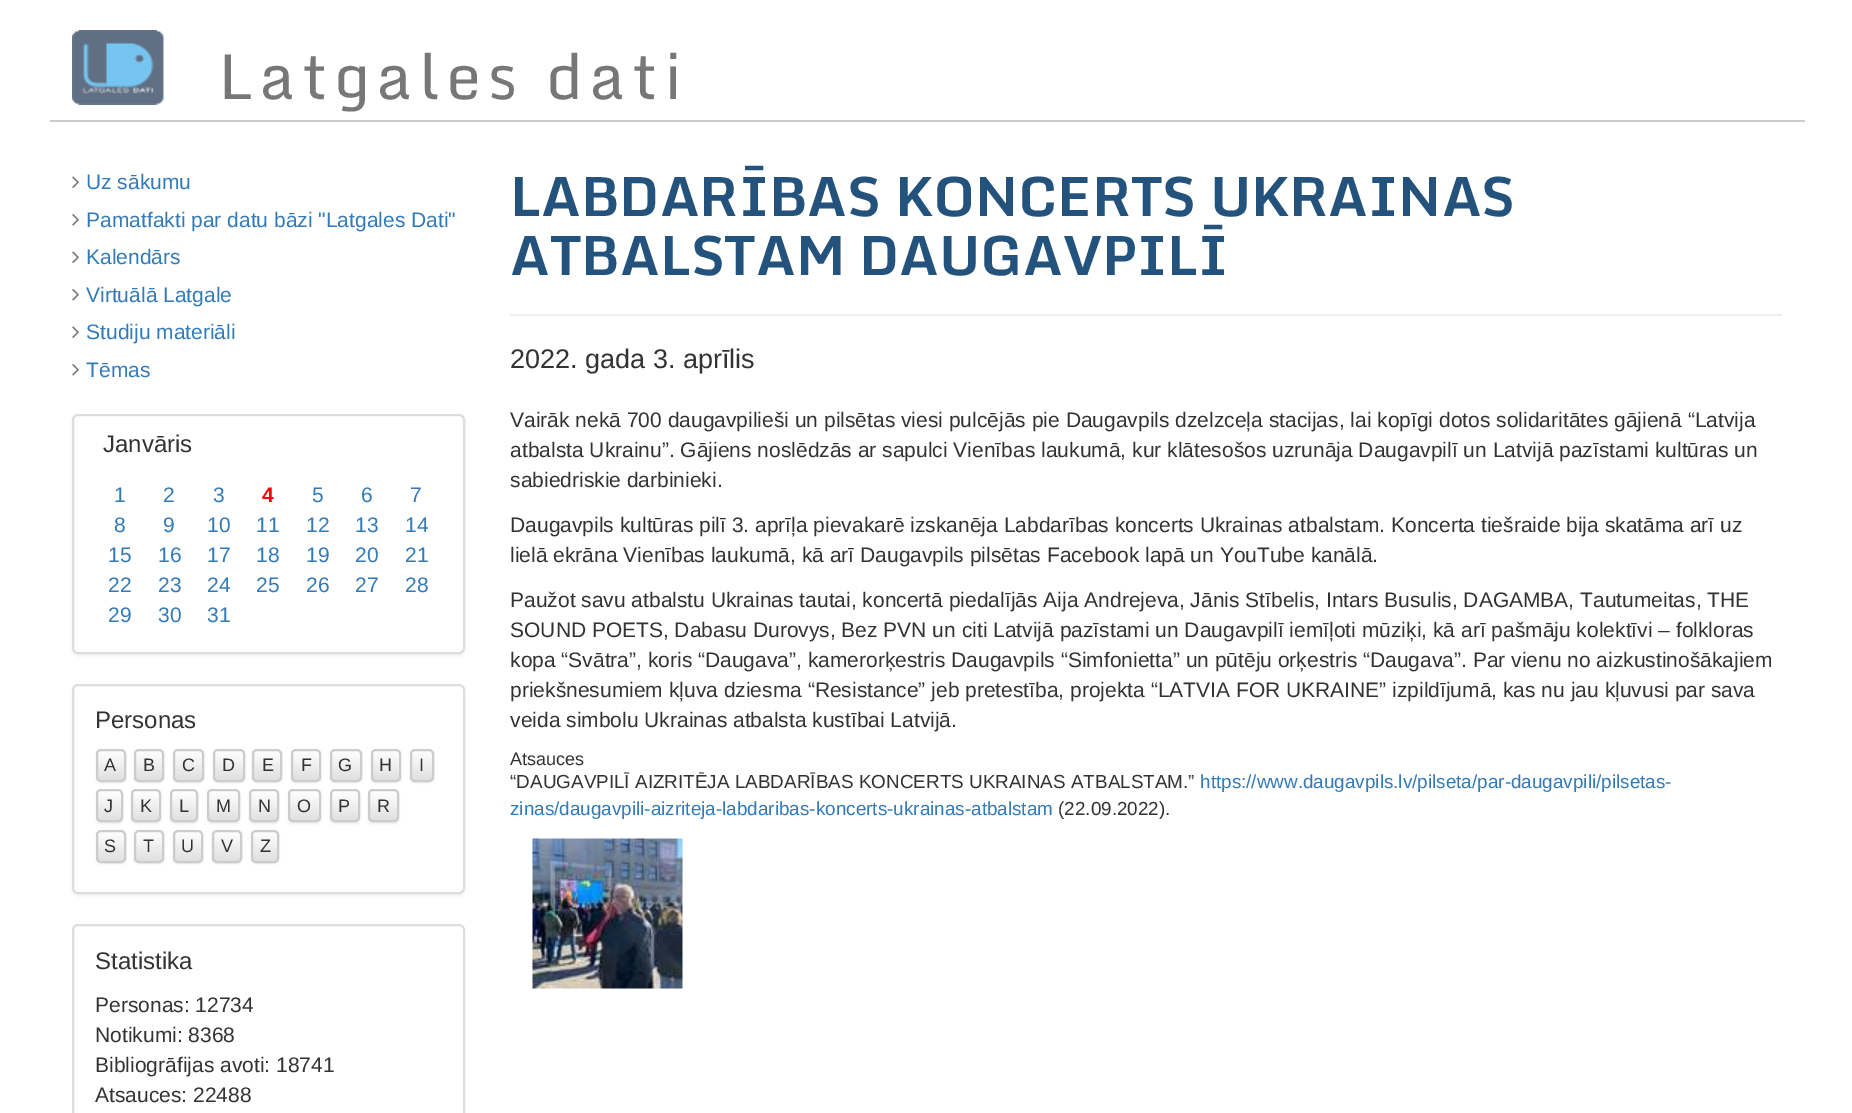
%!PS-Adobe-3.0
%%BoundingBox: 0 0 1852 1113
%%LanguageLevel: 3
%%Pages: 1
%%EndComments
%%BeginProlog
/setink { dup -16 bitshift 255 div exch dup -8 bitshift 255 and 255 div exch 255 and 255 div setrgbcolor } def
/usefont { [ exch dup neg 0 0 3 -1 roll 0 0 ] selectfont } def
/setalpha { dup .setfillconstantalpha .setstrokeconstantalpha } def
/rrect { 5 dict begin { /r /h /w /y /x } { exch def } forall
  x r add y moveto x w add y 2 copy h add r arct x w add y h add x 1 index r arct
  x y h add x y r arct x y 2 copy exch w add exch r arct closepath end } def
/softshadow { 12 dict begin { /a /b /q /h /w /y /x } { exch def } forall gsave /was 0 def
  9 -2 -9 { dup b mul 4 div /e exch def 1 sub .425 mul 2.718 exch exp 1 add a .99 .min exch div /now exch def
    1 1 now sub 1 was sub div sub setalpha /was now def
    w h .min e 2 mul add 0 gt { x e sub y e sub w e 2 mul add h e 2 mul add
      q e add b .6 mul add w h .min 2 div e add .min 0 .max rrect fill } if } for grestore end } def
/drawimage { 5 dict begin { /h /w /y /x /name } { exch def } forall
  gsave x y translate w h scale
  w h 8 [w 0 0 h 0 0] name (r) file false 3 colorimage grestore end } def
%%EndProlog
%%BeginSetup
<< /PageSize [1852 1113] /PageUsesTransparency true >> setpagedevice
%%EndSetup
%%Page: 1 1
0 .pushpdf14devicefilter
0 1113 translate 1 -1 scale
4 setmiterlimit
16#FFFFFF setink
0 0 1852 1113 rectfill
16#CCCCCC setink
50 120 1755 2 rectfill
(img1.raw) 72 30 92 75 drawimage
/Monda-Regular 63 usefont
16#777777 setink
218 99 moveto 6.25 0 (Latgales dati) ashow
(img2.raw) 72 176 7 12 drawimage
/LiberationSans-Regular 21 usefont
16#337AB7 setink
86 189 moveto (Uz sākumu) show
(img3.raw) 72 214 7 12 drawimage
86 227 moveto (Pamatfakti par datu bāzi "Latgales Dati") show
(img2.raw) 72 251 7 12 drawimage
86 264 moveto (Kalendārs) show
(img3.raw) 72 289 7 12 drawimage
86 302 moveto (Virtuālā Latgale) show
(img2.raw) 72 326 7 12 drawimage
86 339 moveto (Studiju materiāli) show
(img3.raw) 72 364 7 12 drawimage
86 377 moveto (Tēmas) show
16#000000 setink
72 416 393 240 6 1.5 0.05 softshadow
16#FFFFFF setink
73 415 391 238 5 rrect gsave fill grestore
16#DDDDDD setink
2 setlinewidth
stroke
/LiberationSans-Regular 24 usefont
16#333333 setink
103 452 moveto (Janvāris) show
/LiberationSans-Regular 21 usefont
16#337AB7 setink
[
    [(1) 114 502]
    [(2) 163 502]
    [(3) 213 502]
] { aload pop moveto show } forall
/LiberationSans-Bold 21 usefont
16#FF0000 setink
262 502 moveto (4) show
/LiberationSans-Regular 21 usefont
16#337AB7 setink
[
    [(5) 312 502]
    [(6) 361 502]
    [(7) 410 502]
    [(8) 114 532]
    [(9) 163 532]
    [(10) 207 532]
    [(11) 256 532]
    [(12) 306 532]
    [(13) 355 532]
    [(14) 405 532]
    [(15) 108 562]
    [(16) 158 562]
    [(17) 207 562]
    [(18) 256 562]
    [(19) 306 562]
    [(20) 355 562]
    [(21) 405 562]
    [(22) 108 592]
    [(23) 158 592]
    [(24) 207 592]
    [(25) 256 592]
    [(26) 306 592]
    [(27) 355 592]
    [(28) 405 592]
    [(29) 108 622]
    [(30) 158 622]
    [(31) 207 622]
] { aload pop moveto show } forall
16#000000 setink
72 686 393 210 6 1.5 0.05 softshadow
16#FFFFFF setink
73 685 391 208 5 rrect gsave fill grestore
16#DDDDDD setink
stroke
/LiberationSans-Regular 24 usefont
16#333333 setink
95 728 moveto (Personas) show
16#000000 setink
96 750 30 33 5 1 0.07 softshadow
gsave
96 749 30 33 5 rrect clip newpath
gsave 96 750 moveto 126 750 lineto 126 780 lineto 96 780 lineto closepath clip newpath
<< /ShadingType 2 /ColorSpace /DeviceRGB /Coords [111 750 111 780] /Extend [true true] /Function << /FunctionType 2 /Domain [0 1] /C0 [1 1 1] /C1 [0.878 0.878 0.878] /N 1 >> >> shfill grestore
grestore
0.15 setalpha
16#FFFFFF setink
100 752 moveto 122.5 752 lineto 125 752.5 124 756.5 124 758 curveto 124 779.5 lineto 125.5 778 125 775 125 773 curveto 125 765 lineto 125 748 128 750 111.5 750 curveto 104.5 750 lineto 100.5 750 98 749.5 98 754 curveto 98 753 99 752 100 752 curveto closepath fill
1 setalpha
16#CCCCCC setink
97 750 28 31 4 rrect stroke
/LiberationSans-Regular 18 usefont
16#333333 setink
104 771 moveto (A) show
16#000000 setink
134 750 30 33 5 1 0.07 softshadow
gsave
134 749 30 33 5 rrect clip newpath
gsave 134 750 moveto 164 750 lineto 164 780 lineto 134 780 lineto closepath clip newpath
<< /ShadingType 2 /ColorSpace /DeviceRGB /Coords [149 750 149 780] /Extend [true true] /Function << /FunctionType 2 /Domain [0 1] /C0 [1 1 1] /C1 [0.878 0.878 0.878] /N 1 >> >> shfill grestore
grestore
16#CCCCCC setink
135 750 28 31 4 rrect stroke
16#333333 setink
143 771 moveto (B) show
16#000000 setink
173 750 31 33 5 1 0.07 softshadow
gsave
173 749 31 33 5 rrect clip newpath
gsave 173 750 moveto 204 750 lineto 204 780 lineto 173 780 lineto closepath clip newpath
<< /ShadingType 2 /ColorSpace /DeviceRGB /Coords [188 750 188 780] /Extend [true true] /Function << /FunctionType 2 /Domain [0 1] /C0 [1 1 1] /C1 [0.878 0.878 0.878] /N 1 >> >> shfill grestore
grestore
0.15 setalpha
16#FFFFFF setink
177 752 moveto 200.5 752 lineto 203 752.5 202 756.5 202 758 curveto 202 779.5 lineto 203.5 778 203 775 203 773 curveto 203 765 lineto 203 747.5 205.5 750 188.5 750 curveto 181 750 lineto 177 750 174 749.5 174 754 curveto 174 753 175 752 177 752 curveto closepath fill
1 setalpha
16#CCCCCC setink
174 750 29 31 4 rrect stroke
16#333333 setink
182 771 moveto (C) show
16#000000 setink
213 750 32 33 5 1 0.07 softshadow
gsave
213 749 32 33 5 rrect clip newpath
gsave 213 750 moveto 245 750 lineto 245 780 lineto 213 780 lineto closepath clip newpath
<< /ShadingType 2 /ColorSpace /DeviceRGB /Coords [229 750 229 780] /Extend [true true] /Function << /FunctionType 2 /Domain [0 1] /C0 [1 1 1] /C1 [0.878 0.878 0.878] /N 1 >> >> shfill grestore
grestore
16#CCCCCC setink
214 750 30 31 4 rrect stroke
16#333333 setink
222 771 moveto (D) show
16#000000 setink
252 750 30 33 5 1 0.07 softshadow
gsave
252 749 30 33 5 rrect clip newpath
gsave 252 750 moveto 282 750 lineto 282 780 lineto 252 780 lineto closepath clip newpath
<< /ShadingType 2 /ColorSpace /DeviceRGB /Coords [267 750 267 780] /Extend [true true] /Function << /FunctionType 2 /Domain [0 1] /C0 [1 1 1] /C1 [0.878 0.878 0.878] /N 1 >> >> shfill grestore
grestore
0.15 setalpha
16#FFFFFF setink
256 752 moveto 278.5 752 lineto 281 752.5 280 756.5 280 758 curveto 280 779.5 lineto 281.5 778 281 775 281 773 curveto 281 765 lineto 281 748 284 750 267.5 750 curveto 260.5 750 lineto 256.5 750 254 749.5 254 754 curveto 254 753 255 752 256 752 curveto closepath fill
1 setalpha
16#CCCCCC setink
253 750 28 31 4 rrect stroke
16#333333 setink
262 771 moveto (E) show
16#000000 setink
291 750 30 33 5 1 0.07 softshadow
gsave
291 749 30 33 5 rrect clip newpath
gsave 291 750 moveto 321 750 lineto 321 780 lineto 291 780 lineto closepath clip newpath
<< /ShadingType 2 /ColorSpace /DeviceRGB /Coords [306 750 306 780] /Extend [true true] /Function << /FunctionType 2 /Domain [0 1] /C0 [1 1 1] /C1 [0.878 0.878 0.878] /N 1 >> >> shfill grestore
grestore
16#CCCCCC setink
292 750 28 31 4 rrect stroke
16#333333 setink
301 771 moveto (F) show
16#000000 setink
330 750 32 33 5 1 0.07 softshadow
gsave
330 749 32 33 5 rrect clip newpath
gsave 330 750 moveto 362 750 lineto 362 780 lineto 330 780 lineto closepath clip newpath
<< /ShadingType 2 /ColorSpace /DeviceRGB /Coords [346 750 346 780] /Extend [true true] /Function << /FunctionType 2 /Domain [0 1] /C0 [1 1 1] /C1 [0.878 0.878 0.878] /N 1 >> >> shfill grestore
grestore
16#CCCCCC setink
331 750 30 31 4 rrect stroke
16#333333 setink
338 771 moveto (G) show
16#000000 setink
371 750 30 33 5 1 0.07 softshadow
gsave
371 749 30 33 5 rrect clip newpath
gsave 371 750 moveto 401 750 lineto 401 780 lineto 371 780 lineto closepath clip newpath
<< /ShadingType 2 /ColorSpace /DeviceRGB /Coords [386 750 386 780] /Extend [true true] /Function << /FunctionType 2 /Domain [0 1] /C0 [1 1 1] /C1 [0.878 0.878 0.878] /N 1 >> >> shfill grestore
grestore
16#CCCCCC setink
372 750 28 31 4 rrect stroke
16#333333 setink
379 771 moveto (H) show
16#000000 setink
410 750 24 33 5 1 0.07 softshadow
gsave
410 749 24 33 5 rrect clip newpath
gsave 410 750 moveto 434 750 lineto 434 780 lineto 410 780 lineto closepath clip newpath
<< /ShadingType 2 /ColorSpace /DeviceRGB /Coords [422 750 422 780] /Extend [true true] /Function << /FunctionType 2 /Domain [0 1] /C0 [1 1 1] /C1 [0.878 0.878 0.878] /N 1 >> >> shfill grestore
grestore
16#CCCCCC setink
411 750 22 31 4 rrect stroke
16#333333 setink
419 771 moveto (I) show
16#000000 setink
96 791 27 33 5 1 0.07 softshadow
gsave
96 789 27 33 5 rrect clip newpath
gsave 96 791 moveto 123 791 lineto 123 821 lineto 96 821 lineto closepath clip newpath
<< /ShadingType 2 /ColorSpace /DeviceRGB /Coords [110 791 110 821] /Extend [true true] /Function << /FunctionType 2 /Domain [0 1] /C0 [1 1 1] /C1 [0.878 0.878 0.878] /N 1 >> >> shfill grestore
grestore
16#CCCCCC setink
97 790 25 31 4 rrect stroke
16#333333 setink
104 812 moveto (J) show
16#000000 setink
131 791 30 33 5 1 0.07 softshadow
gsave
131 789 30 33 5 rrect clip newpath
gsave 131 791 moveto 161 791 lineto 161 821 lineto 131 821 lineto closepath clip newpath
<< /ShadingType 2 /ColorSpace /DeviceRGB /Coords [146 791 146 821] /Extend [true true] /Function << /FunctionType 2 /Domain [0 1] /C0 [1 1 1] /C1 [0.878 0.878 0.878] /N 1 >> >> shfill grestore
grestore
16#CCCCCC setink
132 790 28 31 4 rrect stroke
16#333333 setink
140 812 moveto (K) show
16#000000 setink
170 791 28 33 5 1 0.07 softshadow
gsave
170 789 28 33 5 rrect clip newpath
gsave 170 791 moveto 198 791 lineto 198 821 lineto 170 821 lineto closepath clip newpath
<< /ShadingType 2 /ColorSpace /DeviceRGB /Coords [184 791 184 821] /Extend [true true] /Function << /FunctionType 2 /Domain [0 1] /C0 [1 1 1] /C1 [0.878 0.878 0.878] /N 1 >> >> shfill grestore
grestore
0.15 setalpha
16#FFFFFF setink
174 792 moveto 194.5 792 lineto 197 792.5 196 798 196 799 curveto 196 820.5 lineto 197.5 819 197 816 197 814 curveto 197 806 lineto 197 789.5 200 791 184 791 curveto 177.5 791 lineto 173.5 791 171 790.5 171 795 curveto 171 793 172 792 174 792 curveto closepath fill
1 setalpha
16#CCCCCC setink
171 790 26 31 4 rrect stroke
16#333333 setink
179 812 moveto (L) show
16#000000 setink
207 791 33 33 5 1 0.07 softshadow
gsave
207 789 33 33 5 rrect clip newpath
gsave 207 791 moveto 240 791 lineto 240 821 lineto 207 821 lineto closepath clip newpath
<< /ShadingType 2 /ColorSpace /DeviceRGB /Coords [224 791 224 821] /Extend [true true] /Function << /FunctionType 2 /Domain [0 1] /C0 [1 1 1] /C1 [0.878 0.878 0.878] /N 1 >> >> shfill grestore
grestore
0.15 setalpha
16#FFFFFF setink
212 792 moveto 236.5 792 lineto 239 792.5 238 798 238 799 curveto 238 820.5 lineto 238.5 820 239 819 239 818 curveto 239 794 lineto 239 792.5 237.5 791 236 791 curveto 212 791 lineto 211 791 210 791.5 209.5 792.5 curveto closepath fill
1 setalpha
16#CCCCCC setink
208 790 31 31 4 rrect stroke
16#333333 setink
216 812 moveto (M) show
16#000000 setink
249 791 30 33 5 1 0.07 softshadow
gsave
249 789 30 33 5 rrect clip newpath
gsave 249 791 moveto 279 791 lineto 279 821 lineto 249 821 lineto closepath clip newpath
<< /ShadingType 2 /ColorSpace /DeviceRGB /Coords [264 791 264 821] /Extend [true true] /Function << /FunctionType 2 /Domain [0 1] /C0 [1 1 1] /C1 [0.878 0.878 0.878] /N 1 >> >> shfill grestore
grestore
16#CCCCCC setink
250 790 28 31 4 rrect stroke
16#333333 setink
258 812 moveto (N) show
16#000000 setink
288 791 33 33 5 1 0.07 softshadow
gsave
288 789 33 33 5 rrect clip newpath
gsave 288 791 moveto 321 791 lineto 321 821 lineto 288 821 lineto closepath clip newpath
<< /ShadingType 2 /ColorSpace /DeviceRGB /Coords [305 791 305 821] /Extend [true true] /Function << /FunctionType 2 /Domain [0 1] /C0 [1 1 1] /C1 [0.878 0.878 0.878] /N 1 >> >> shfill grestore
grestore
16#CCCCCC setink
289 790 31 31 4 rrect stroke
16#333333 setink
297 812 moveto (O) show
16#000000 setink
330 791 30 33 5 1 0.07 softshadow
gsave
330 789 30 33 5 rrect clip newpath
gsave 330 791 moveto 360 791 lineto 360 821 lineto 330 821 lineto closepath clip newpath
<< /ShadingType 2 /ColorSpace /DeviceRGB /Coords [345 791 345 821] /Extend [true true] /Function << /FunctionType 2 /Domain [0 1] /C0 [1 1 1] /C1 [0.878 0.878 0.878] /N 1 >> >> shfill grestore
grestore
0.15 setalpha
16#FFFFFF setink
334 792 moveto 356.5 792 lineto 359 792.5 358 798 358 799 curveto 358 820.5 lineto 359.5 819 359 816 359 814 curveto 359 806 lineto 359 789 362 791 345.5 791 curveto 338.5 791 lineto 334.5 791 332 790.5 332 795 curveto 332 793 333 792 334 792 curveto closepath fill
1 setalpha
16#CCCCCC setink
331 790 28 31 4 rrect stroke
16#333333 setink
338 812 moveto (P) show
16#000000 setink
368 791 31 33 5 1 0.07 softshadow
gsave
368 789 31 33 5 rrect clip newpath
gsave 368 791 moveto 399 791 lineto 399 821 lineto 368 821 lineto closepath clip newpath
<< /ShadingType 2 /ColorSpace /DeviceRGB /Coords [383 791 383 821] /Extend [true true] /Function << /FunctionType 2 /Domain [0 1] /C0 [1 1 1] /C1 [0.878 0.878 0.878] /N 1 >> >> shfill grestore
grestore
16#CCCCCC setink
369 790 29 31 4 rrect stroke
16#333333 setink
377 812 moveto (R) show
16#000000 setink
96 831 30 33 5 1 0.07 softshadow
gsave
96 830 30 33 5 rrect clip newpath
gsave 96 831 moveto 126 831 lineto 126 861 lineto 96 861 lineto closepath clip newpath
<< /ShadingType 2 /ColorSpace /DeviceRGB /Coords [111 831 111 861] /Extend [true true] /Function << /FunctionType 2 /Domain [0 1] /C0 [1 1 1] /C1 [0.878 0.878 0.878] /N 1 >> >> shfill grestore
grestore
16#CCCCCC setink
97 831 28 31 4 rrect stroke
16#333333 setink
104 852 moveto (S) show
16#000000 setink
134 831 30 33 5 1 0.07 softshadow
gsave
134 830 30 33 5 rrect clip newpath
gsave 134 831 moveto 164 831 lineto 164 861 lineto 134 861 lineto closepath clip newpath
<< /ShadingType 2 /ColorSpace /DeviceRGB /Coords [149 831 149 861] /Extend [true true] /Function << /FunctionType 2 /Domain [0 1] /C0 [1 1 1] /C1 [0.878 0.878 0.878] /N 1 >> >> shfill grestore
grestore
16#CCCCCC setink
135 831 28 31 4 rrect stroke
16#333333 setink
143 852 moveto (T) show
16#000000 setink
173 831 30 33 5 1 0.07 softshadow
gsave
173 830 30 33 5 rrect clip newpath
gsave 173 831 moveto 203 831 lineto 203 861 lineto 173 861 lineto closepath clip newpath
<< /ShadingType 2 /ColorSpace /DeviceRGB /Coords [188 831 188 861] /Extend [true true] /Function << /FunctionType 2 /Domain [0 1] /C0 [1 1 1] /C1 [0.878 0.878 0.878] /N 1 >> >> shfill grestore
grestore
16#CCCCCC setink
174 831 28 31 4 rrect stroke
16#333333 setink
181 852 moveto (U) show
16#000000 setink
212 831 30 33 5 1 0.07 softshadow
gsave
212 830 30 33 5 rrect clip newpath
gsave 212 831 moveto 242 831 lineto 242 861 lineto 212 861 lineto closepath clip newpath
<< /ShadingType 2 /ColorSpace /DeviceRGB /Coords [227 831 227 861] /Extend [true true] /Function << /FunctionType 2 /Domain [0 1] /C0 [1 1 1] /C1 [0.878 0.878 0.878] /N 1 >> >> shfill grestore
grestore
16#CCCCCC setink
213 831 28 31 4 rrect stroke
16#333333 setink
221 852 moveto (V) show
16#000000 setink
251 831 28 33 5 1 0.07 softshadow
gsave
251 830 28 33 5 rrect clip newpath
gsave 251 831 moveto 279 831 lineto 279 861 lineto 251 861 lineto closepath clip newpath
<< /ShadingType 2 /ColorSpace /DeviceRGB /Coords [265 831 265 861] /Extend [true true] /Function << /FunctionType 2 /Domain [0 1] /C0 [1 1 1] /C1 [0.878 0.878 0.878] /N 1 >> >> shfill grestore
grestore
16#CCCCCC setink
252 831 26 31 4 rrect stroke
16#333333 setink
260 852 moveto (Z) show
16#DDDDDD setink
73 925 391 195 5 rrect stroke
/LiberationSans-Regular 24 usefont
16#333333 setink
95 969 moveto (Statistika) show
/LiberationSans-Regular 21 usefont
[
    [(Personas: 12734) 95 1012]
    [(Notikumi: 8368) 95 1042]
    [(Bibliogrāfijas avoti: 18741) 95 1072]
    [(Atsauces: 22488) 95 1102]
] { aload pop moveto show } forall
16#EEEEEE setink
510 314 1272 2 rectfill
/Monda-Bold 54 usefont
16#23527C setink
510 216 moveto (LABDARĪBAS KONCERTS UKRAINAS) show
510 275 moveto (ATBALSTAM DAUGAVPILĪ) show
/LiberationSans-Regular 27 usefont
16#333333 setink
510 368 moveto (2022. gada 3. aprīlis) show
/LiberationSans-Regular 21 usefont
[
    [(Vairāk nekā 700 daugavpilieši un pilsētas viesi pulcējās pie Daugavpils dzelzceļa stacijas, lai kopīgi dotos solidaritātes gājienā “Latvija) 510 427]
    [(atbalsta Ukrainu”. Gājiens noslēdzās ar sapulci Vienības laukumā, kur klātesošos uzrunāja Daugavpilī un Latvijā pazīstami kultūras un) 510 457]
    [(sabiedriskie darbinieki.) 510 487]
    [(Daugavpils kultūras pilī 3. aprīļa pievakarē izskanēja Labdarības koncerts Ukrainas atbalstam. Koncerta tiešraide bija skatāma arī uz) 510 532]
    [(lielā ekrāna Vienības laukumā, kā arī Daugavpils pilsētas Facebook lapā un YouTube kanālā.) 510 562]
    [(Paužot savu atbalstu Ukrainas tautai, koncertā piedalījās Aija Andrejeva, Jānis Stībelis, Intars Busulis, DAGAMBA, Tautumeitas, THE) 510 607]
    [(SOUND POETS, Dabasu Durovys, Bez PVN un citi Latvijā pazīstami un Daugavpilī iemīļoti mūziķi, kā arī pašmāju kolektīvi – folkloras) 510 637]
    [(kopa “Svātra”, koris “Daugava”, kamerorķestris Daugavpils “Simfonietta” un pūtēju orķestris “Daugava”. Par vienu no aizkustinošākajiem) 510 667]
    [(priekšnesumiem kļuva dziesma “Resistance” jeb pretestība, projekta “LATVIA FOR UKRAINE” izpildījumā, kas nu jau kļuvusi par sava) 510 697]
    [(veida simbolu Ukrainas atbalsta kustībai Latvijā.) 510 727]
] { aload pop moveto show } forall
/LiberationSans-Regular 18 usefont
510 765 moveto (Atsauces) show
/LiberationSans-Regular 18.9 usefont
510 788 moveto (“DAUGAVPILĪ AIZRITĒJA LABDARĪBAS KONCERTS UKRAINAS ATBALSTAM.”) show
16#337AB7 setink
1200 788 moveto (https://www.daugavpils.lv/pilseta/par-daugavpili/pilsetas-) show
510 815 moveto (zinas/daugavpili-aizriteja-labdaribas-koncerts-ukrainas-atbalstam) show
16#333333 setink
1058 815 moveto (\(22.09.2022\).) show
(img4.raw) 532 838 151 151 drawimage
.poppdf14devicefilter showpage
%%EOF
